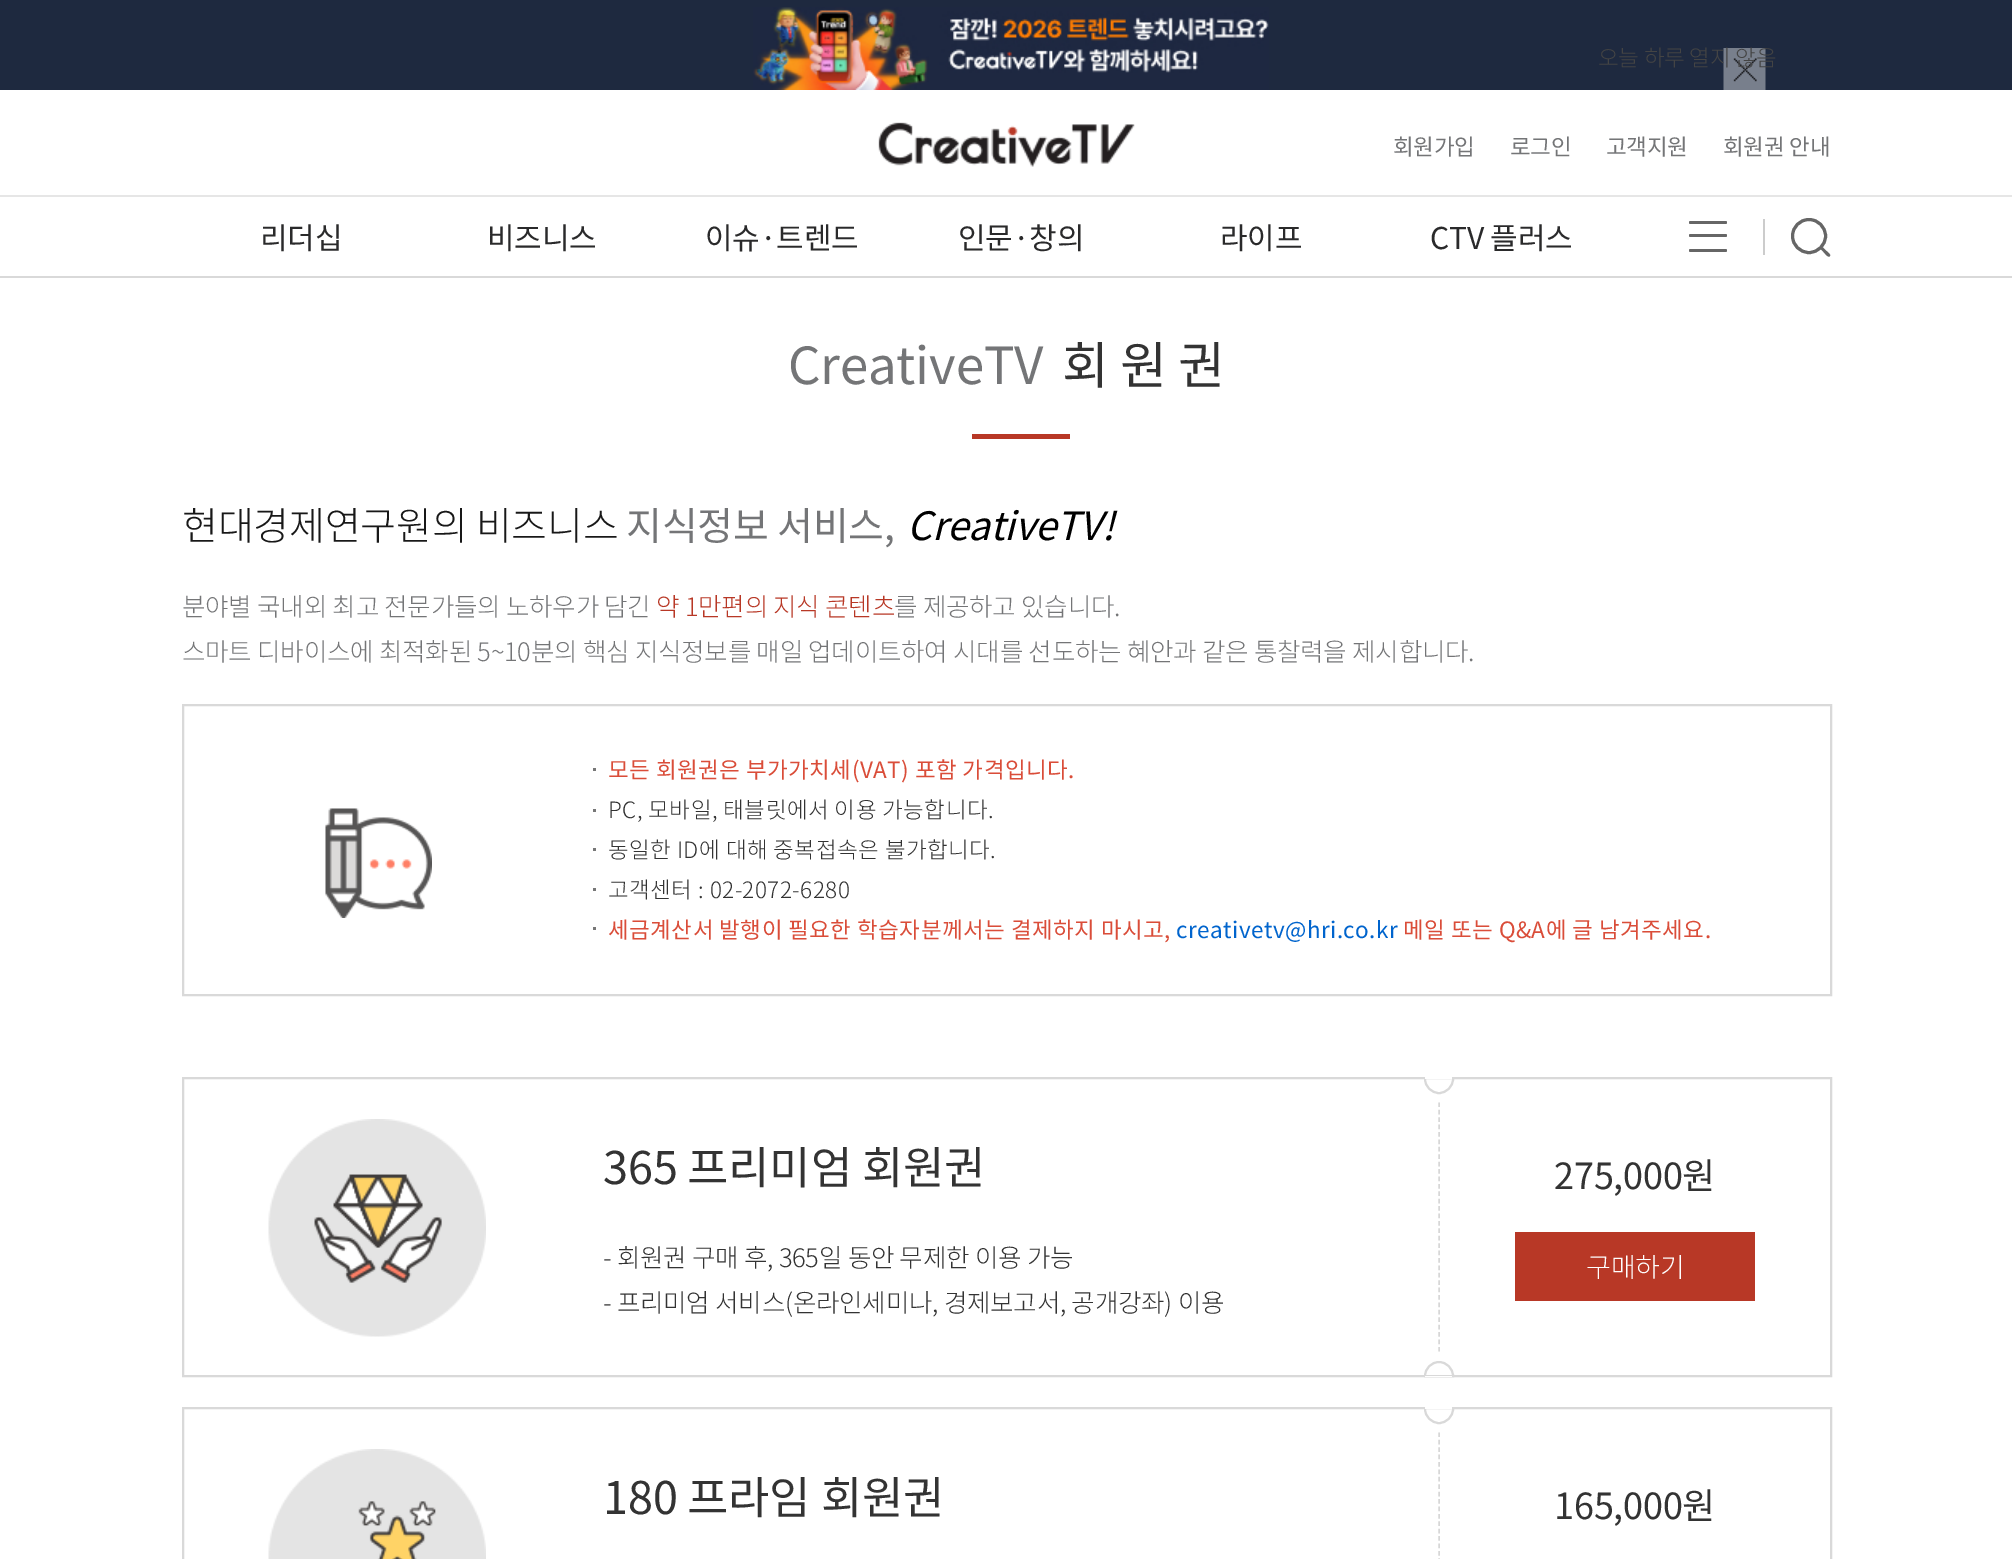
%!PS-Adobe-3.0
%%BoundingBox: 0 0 2012 1559
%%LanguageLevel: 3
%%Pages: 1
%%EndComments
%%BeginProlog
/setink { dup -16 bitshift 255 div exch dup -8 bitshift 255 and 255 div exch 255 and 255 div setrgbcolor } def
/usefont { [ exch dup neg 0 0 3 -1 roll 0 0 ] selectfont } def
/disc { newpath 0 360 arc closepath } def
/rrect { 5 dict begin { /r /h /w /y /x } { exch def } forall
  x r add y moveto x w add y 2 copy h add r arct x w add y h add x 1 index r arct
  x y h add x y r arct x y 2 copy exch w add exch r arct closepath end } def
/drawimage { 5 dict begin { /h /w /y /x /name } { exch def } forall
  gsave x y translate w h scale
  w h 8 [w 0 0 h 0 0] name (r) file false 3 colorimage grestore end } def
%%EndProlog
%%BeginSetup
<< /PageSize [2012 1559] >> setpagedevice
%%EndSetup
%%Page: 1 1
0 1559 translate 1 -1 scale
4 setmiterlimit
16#FFFFFF setink
0 0 2012 1559 rectfill
16#1E293F setink
0 0 2012 90 rectfill
(img1.raw) 753 7 516 83 drawimage
(img2.raw) 1723 48 43 42 drawimage
/NotoSansKR-Light 22.5 usefont
16#444444 setink
1598 66 moveto -0.22 0 (오늘 하루 열지 않음) ashow
(img3.raw) 878 122 257 45 drawimage
/NotoSansKR-Regular 22.5 usefont
16#747577 setink
1393 155 moveto -0.22 0 (회원가입) ashow
1510 155 moveto -0.22 0 (로그인) ashow
1606 155 moveto -0.22 0 (고객지원) ashow
1723 155 moveto -0.22 0 (회원권 안내) ashow
16#E6E6E6 setink
0 195 2012 2 rectfill
16#D9D9D9 setink
0 276 2012 2 rectfill
/NotoSansKR-Regular 30 usefont
16#2A2A2B setink
260 249 moveto -0.22 0 (리더십) ashow
487 249 moveto -0.22 0 (비즈니스) ashow
705 249 moveto -0.22 0 (이슈·트렌드) ashow
958 249 moveto -0.22 0 (인문·창의) ashow
1220 249 moveto -0.22 0 (라이프) ashow
1430 249 moveto -0.22 0 (CTV 플러스) ashow
16#666666 setink
1689 221 38 3 1.5 rrect fill
1689 234 38 3 1.5 rrect fill
1689 249 38 3 1.5 rrect fill
16#CCCCCC setink
1763 219 2 36 rectfill
16#666666 setink
3 setlinewidth
1809 236 16.5 disc stroke
1823.5 248 moveto 1826.5 251 lineto 1827.5 252 1831 254.5 1830 256 curveto 1828.5 258.5 1824.5 253 1823.5 252 curveto 1821 249.5 lineto 1820.5 248 1822.5 246.5 1823.5 248 curveto closepath fill
/NotoSansKR-Regular 51 usefont
16#747577 setink
788 384 moveto -0.22 0 (CreativeTV) ashow
16#333333 setink
1062 384 moveto -0.22 0 (회 원 권) ashow
16#B83826 setink
972 434 98 5 rectfill
/NotoSansKR-Light 39 usefont
16#181818 setink
182 540 moveto -0.22 0 (현대경제연구원의 비즈니스) ashow
/NotoSansKR-Regular 39 usefont
16#747577 setink
626 540 moveto -0.22 0 (지식정보 서비스,) ashow
/NotoSansKR-Italic 39 usefont
16#000000 setink
907 540 moveto -0.22 0 (CreativeTV!) ashow
/NotoSansKR-Light 25.5 usefont
16#747577 setink
182 616 moveto -0.22 0 (분야별 국내외 최고 전문가들의 노하우가 담긴) ashow
16#B83826 setink
656 616 moveto -0.22 0 (약 1만편의 지식 콘텐츠) ashow
16#747577 setink
894 616 moveto -0.22 0 (를 제공하고 있습니다.) ashow
182 661 moveto -0.22 0 (스마트 디바이스에 최적화된 5~10분의 핵심 지식정보를 매일 업데이트하여 시대를 선도하는 혜안과 같은 통찰력을 제시합니다.) ashow
16#D9D9D9 setink
2 setlinewidth
183 705 1648 290 rectstroke
(img4.raw) 325 808 107 110 drawimage
16#777777 setink
593 768 3 3 rectfill
/NotoSansKR-Regular 22.5 usefont
16#DA4D39 setink
608 778 moveto 0.45 0 (모든 회원권은 부가가치세\(VAT\) 포함 가격입니다.) ashow
16#777777 setink
593 809 3 3 rectfill
/NotoSansKR-Light 22.5 usefont
16#333333 setink
608 818 moveto 0.45 0 (PC, 모바일, 태블릿에서 이용 가능합니다.) ashow
16#777777 setink
593 848 3 3 rectfill
16#333333 setink
608 858 moveto 0.45 0 (동일한 ID에 대해 중복접속은 불가합니다.) ashow
16#777777 setink
593 888 3 3 rectfill
16#333333 setink
608 898 moveto 0.45 0 (고객센터 : 02-2072-6280) ashow
16#777777 setink
593 927 3 3 rectfill
/NotoSansKR-Regular 22.5 usefont
16#DA4D39 setink
608 938 moveto 0.45 0 (세금계산서 발행이 필요한 학습자분께서는 결제하지 마시고,) ashow
16#0064CD setink
1176 938 moveto 0.45 0 (creativetv@hri.co.kr) ashow
16#DA4D39 setink
1403 938 moveto 0.45 0 (메일 또는 Q&A에 글 남겨주세요.) ashow
16#D9D9D9 setink
183 1078 1648 298 rectstroke
(img5.raw) 268 1119 218 218 drawimage
/NotoSansKR-Regular 45 usefont
16#333333 setink
603 1184 moveto -0.22 0 (365 프리미엄 회원권) ashow
16#D7D7D7 setink
1.5 setlinewidth
[4.5 2.91] 0 setdash
1439 1102.5 moveto 1439 1351.5 lineto stroke
16#FFFFFF setink
1425 1078 moveto 1453 1078 lineto 1453 1079 lineto 1453 1086.5 1446.5 1093 1439 1093 curveto 1431.5 1093 1425 1086.5 1425 1079 curveto closepath gsave fill grestore
16#D9D9D9 setink
2 setlinewidth
[] 0 setdash
stroke
16#FFFFFF setink
1425 1077 27 2 rectfill
/NotoSansKR-Regular 36 usefont
16#333333 setink
1554 1189 moveto -0.22 0 (275,000원) ashow
16#B83826 setink
1515 1232 240 69 rectfill
/NotoSansKR-Light 27 usefont
16#FFFFFF setink
1586 1277 moveto -0.22 0 (구매하기) ashow
/NotoSansKR-Light 25.5 usefont
16#333333 setink
603 1267 moveto -0.22 0 (- 회원권 구매 후, 365일 동안 무제한 이용 가능) ashow
603 1312 moveto -0.22 0 (- 프리미엄 서비스\(온라인세미나, 경제보고서, 공개강좌\) 이용) ashow
16#FFFFFF setink
1439 1362 moveto 1446.5 1362 1453 1368.5 1453 1376 curveto 1425 1376 lineto 1425 1368.5 1431.5 1362 1439 1362 curveto closepath gsave fill grestore
16#D9D9D9 setink
stroke
16#FFFFFF setink
1425 1376 27 1 rectfill
16#D9D9D9 setink
183 1408 1648 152 rectstroke
(img6.raw) 268 1449 218 110 drawimage
/NotoSansKR-Regular 45 usefont
16#333333 setink
603 1514 moveto -0.22 0 (180 프라임 회원권) ashow
16#D7D7D7 setink
1.5 setlinewidth
[4.5 2.91] 0 setdash
1439 1432.5 moveto 1439 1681.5 lineto stroke
16#FFFFFF setink
1425 1408 moveto 1453 1408 lineto 1453 1409 lineto 1453 1416.5 1446.5 1423 1439 1423 curveto 1431.5 1423 1425 1416.5 1425 1409 curveto closepath gsave fill grestore
16#D9D9D9 setink
2 setlinewidth
[] 0 setdash
stroke
16#FFFFFF setink
1425 1407 27 2 rectfill
/NotoSansKR-Regular 36 usefont
16#333333 setink
1554 1519 moveto -0.22 0 (165,000원) ashow
showpage
%%EOF
